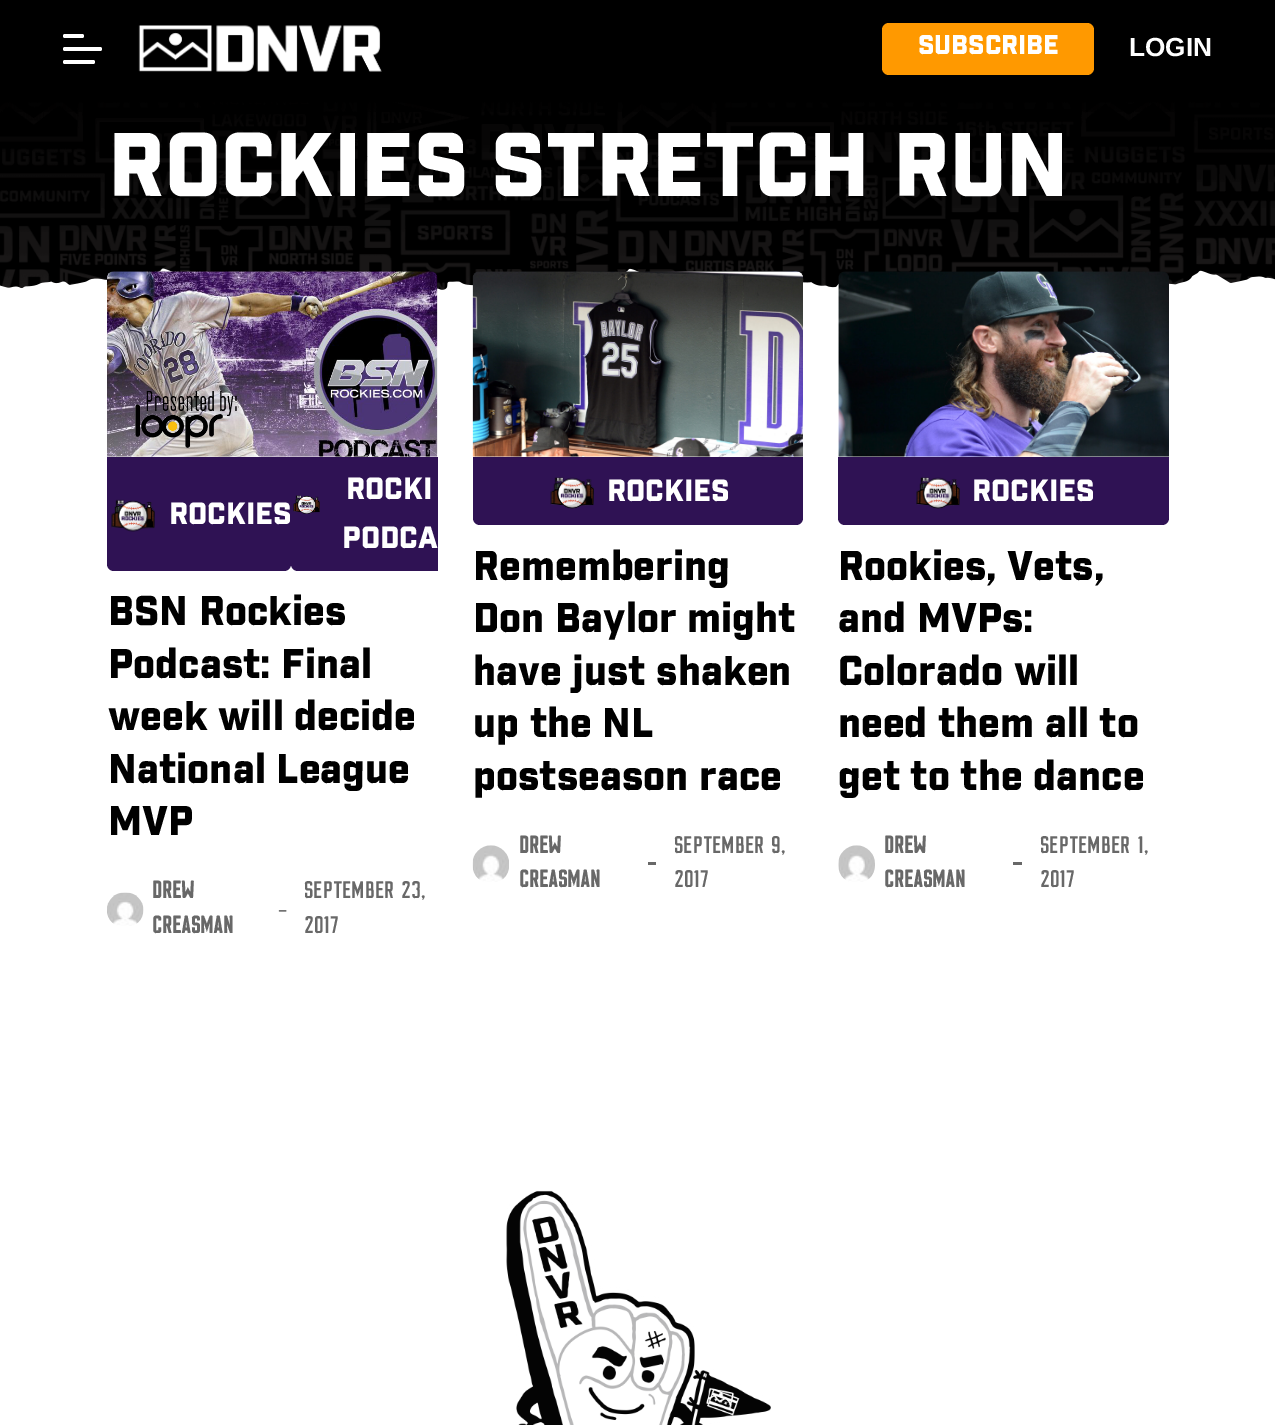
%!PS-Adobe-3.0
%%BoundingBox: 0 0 1275 1425
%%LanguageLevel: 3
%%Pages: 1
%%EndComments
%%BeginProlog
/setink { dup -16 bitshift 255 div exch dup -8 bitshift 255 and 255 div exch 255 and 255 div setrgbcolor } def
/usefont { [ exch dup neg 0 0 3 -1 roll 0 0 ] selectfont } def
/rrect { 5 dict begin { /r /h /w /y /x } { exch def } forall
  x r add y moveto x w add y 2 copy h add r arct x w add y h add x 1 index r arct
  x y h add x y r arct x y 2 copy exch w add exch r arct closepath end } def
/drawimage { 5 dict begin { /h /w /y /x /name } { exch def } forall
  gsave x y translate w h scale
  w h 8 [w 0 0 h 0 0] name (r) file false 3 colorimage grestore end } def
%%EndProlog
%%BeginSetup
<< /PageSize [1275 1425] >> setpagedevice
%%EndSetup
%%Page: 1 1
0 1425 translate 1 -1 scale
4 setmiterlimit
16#FFFFFF setink
0 0 1275 1425 rectfill
16#000000 setink
0 0 1275 96 rectfill
16#FFFFFF setink
63 34 21 4 2 rrect fill
63 47 39 4 2 rrect fill
63 60 32 4 2 rrect fill
(img1.raw) 138 25 244 47 drawimage
16#FF9900 setink
882 23 212 52 7 rrect fill
/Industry-Black 26.25 usefont
16#FFFFFF setink
918 54 moveto (SUBSCRIBE) show
/LiberationSans-Bold 26.25 usefont
1129 56 moveto (LOGIN) show
(img2.raw) 0 96 1275 194 drawimage
/Industry-Black 87.5 usefont
108 196 moveto (ROCKIES STRETCH RUN) show
(img3.raw) 0 268 1275 40 drawimage
(img4.raw) 107 271 331 186 drawimage
16#2F1254 setink
107 457 moveto 291 457 lineto 291 564 lineto 291 568 288 571 284 571 curveto 114 571 lineto 110 571 107 568 107 564 curveto closepath fill
(img5.raw) 111 499 44 33 drawimage
/Industry-Black 29.75 usefont
16#FFFFFF setink
169 524 moveto (ROCKIES) show
16#2F1254 setink
291 457 moveto 438 457 lineto 438 571 lineto 298 571 lineto 294 571 291 568 291 564 curveto closepath fill
16#FFFFFF setink
346 499 moveto (ROCKI) show
(img6.raw) 293 495 27 19 drawimage
342 548 moveto (PODCA) show
/Industry-Black 40.25 usefont
16#000000 setink
[
    [(BSN Rockies) 108 625]
    [(Podcast: Final) 108 678]
    [(week will decide) 108 730]
    [(National League) 108 783]
    [(MVP) 108 835]
] { aload pop moveto show } forall
(img7.raw) 107 892 37 34 drawimage
/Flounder-Bold 21 usefont
16#686868 setink
152 898 moveto (DREW) show
152 933 moveto (CREASMAN) show
(img8.raw) 278 910 9 2 drawimage
/Flounder-Medium 21 usefont
304 898 moveto (SEPTEMBER 23,) show
304 933 moveto (2017) show
(img9.raw) 472 271 331 186 drawimage
16#2F1254 setink
473 457 moveto 803 457 lineto 803 518 lineto 803 522 800 525 796 525 curveto 480 525 lineto 476 525 473 522 473 518 curveto closepath fill
(img10.raw) 550 477 44 32 drawimage
/Industry-Black 29.75 usefont
16#FFFFFF setink
607 501 moveto (ROCKIES) show
/Industry-Black 40.25 usefont
16#000000 setink
[
    [(Remembering) 473 580]
    [(Don Baylor might) 473 632]
    [(have just shaken) 473 685]
    [(up the NL) 473 737]
    [(postseason race) 473 790]
] { aload pop moveto show } forall
(img11.raw) 472 845 37 37 drawimage
/Flounder-Bold 21 usefont
16#686868 setink
519 853 moveto (DREW) show
519 887 moveto (CREASMAN) show
648 862 8 3 rectfill
/Flounder-Medium 21 usefont
674 853 moveto (SEPTEMBER 9,) show
674 887 moveto (2017) show
(img12.raw) 838 271 331 186 drawimage
16#2F1254 setink
838 457 moveto 1169 457 lineto 1169 518 lineto 1169 522 1166 525 1162 525 curveto 845 525 lineto 841 525 838 522 838 518 curveto closepath fill
(img13.raw) 916 477 44 32 drawimage
/Industry-Black 29.75 usefont
16#FFFFFF setink
972 501 moveto (ROCKIES) show
/Industry-Black 40.25 usefont
16#000000 setink
[
    [(Rookies, Vets,) 838 580]
    [(and MVPs:) 838 632]
    [(Colorado will) 838 685]
    [(need them all to) 838 737]
    [(get to the dance) 838 790]
] { aload pop moveto show } forall
(img14.raw) 838 845 37 37 drawimage
/Flounder-Bold 21 usefont
16#686868 setink
884 853 moveto (DREW) show
884 887 moveto (CREASMAN) show
1013 862 9 3 rectfill
/Flounder-Medium 21 usefont
1040 853 moveto (SEPTEMBER 1,) show
1040 887 moveto (2017) show
(img15.raw) 506 1190 265 235 drawimage
showpage
%%EOF
